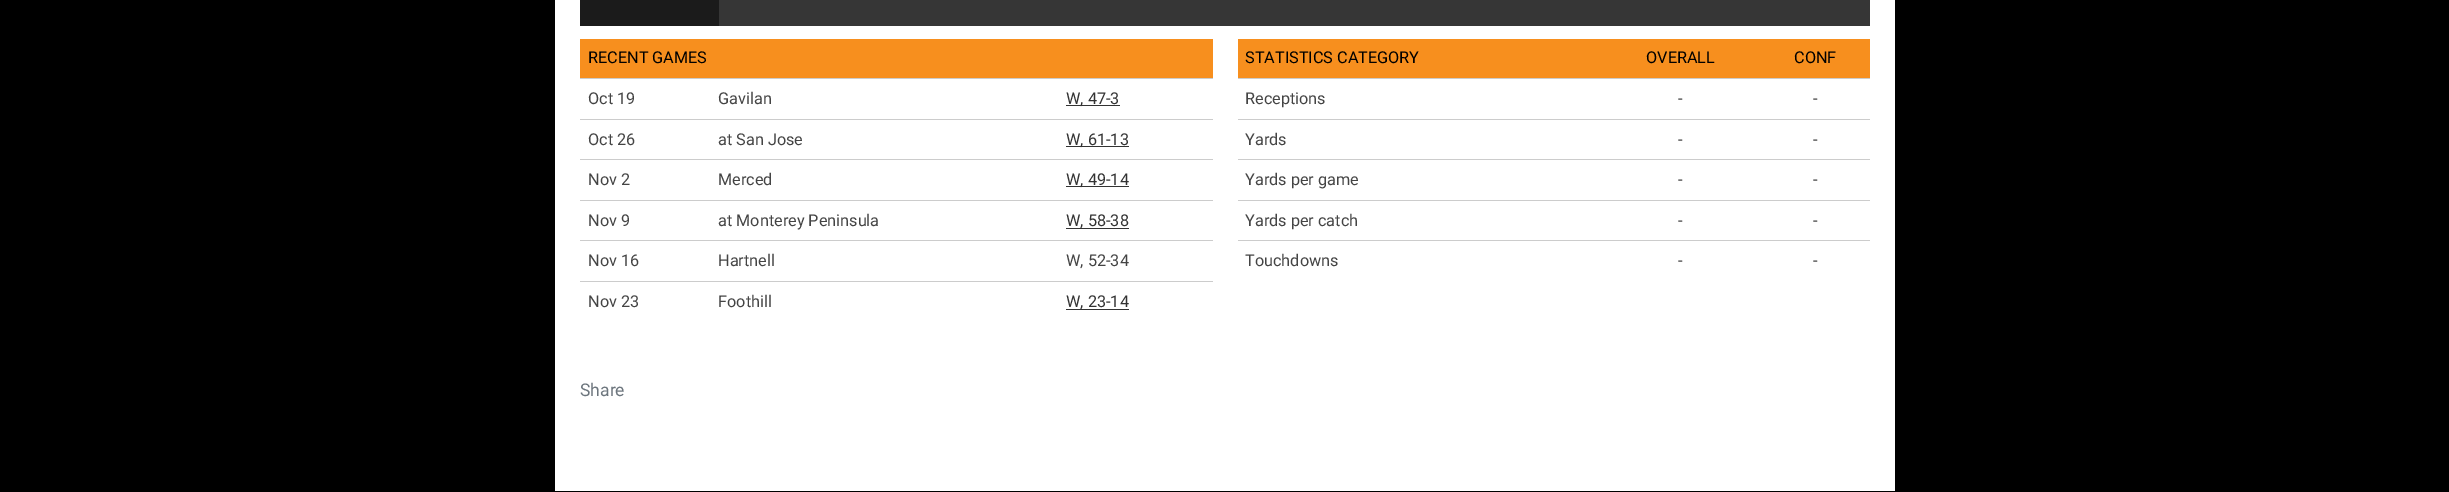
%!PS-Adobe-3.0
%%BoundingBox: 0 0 2449 492
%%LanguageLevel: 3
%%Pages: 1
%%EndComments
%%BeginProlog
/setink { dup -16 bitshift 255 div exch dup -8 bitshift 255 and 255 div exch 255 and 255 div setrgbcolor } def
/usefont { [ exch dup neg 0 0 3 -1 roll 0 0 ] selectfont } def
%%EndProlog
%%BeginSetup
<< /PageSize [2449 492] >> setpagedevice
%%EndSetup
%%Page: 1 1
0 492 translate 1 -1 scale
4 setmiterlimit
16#000000 setink
0 0 2449 492 rectfill
[
    [555 0 1340 491 16#FFFFFF]
    [719 0 1151 26 16#363636]
    [580 0 139 26 16#1B1B1B]
    [580 39 633 39 16#F78F1E]
] { aload pop setink rectfill } forall
/Roboto-Regular 16.25 usefont
16#000000 setink
588 63 moveto (RECENT GAMES) show
16#444444 setink
588 104 moveto (Oct 19) show
718 104 moveto (Gavilan) show
16#CCCCCC setink
580 78 633 1 rectfill
16#333333 setink
1066 105 54 1 rectfill
1066 104 moveto (W, 47-3) show
16#444444 setink
588 145 moveto (Oct 26) show
718 145 moveto (at San Jose) show
16#CCCCCC setink
580 119 633 1 rectfill
16#333333 setink
1066 146 63 1 rectfill
1066 145 moveto (W, 61-13) show
16#444444 setink
588 185 moveto (Nov 2) show
718 185 moveto (Merced) show
16#CCCCCC setink
580 159 633 1 rectfill
16#333333 setink
1066 186 63 1 rectfill
1066 185 moveto (W, 49-14) show
16#444444 setink
588 226 moveto (Nov 9) show
718 226 moveto (at Monterey Peninsula) show
16#CCCCCC setink
580 200 633 1 rectfill
16#333333 setink
1066 228 63 1 rectfill
1066 226 moveto (W, 58-38) show
16#444444 setink
588 266 moveto (Nov 16) show
718 266 moveto (Hartnell) show
16#CCCCCC setink
580 240 633 1 rectfill
16#444444 setink
[
    [(W, 52-34) 1066 266]
    [(Nov 23) 588 307]
    [(Foothill) 718 307]
] { aload pop moveto show } forall
16#CCCCCC setink
580 281 633 1 rectfill
16#333333 setink
1066 309 63 1 rectfill
1066 307 moveto (W, 23-14) show
16#F78F1E setink
1238 39 632 39 rectfill
16#000000 setink
[
    [(STATISTICS CATEGORY) 1245 63]
    [(OVERALL) 1646 63]
    [(CONF) 1794 63]
] { aload pop moveto show } forall
16#444444 setink
1245 104 moveto (Receptions) show
1678 104 moveto (-) show
16#CCCCCC setink
1238 78 632 1 rectfill
16#444444 setink
[
    [(-) 1813 104]
    [(Yards) 1245 145]
    [(-) 1678 145]
] { aload pop moveto show } forall
16#CCCCCC setink
1238 119 632 1 rectfill
16#444444 setink
[
    [(-) 1813 145]
    [(Yards per game) 1245 185]
    [(-) 1678 185]
] { aload pop moveto show } forall
16#CCCCCC setink
1238 159 632 1 rectfill
16#444444 setink
[
    [(-) 1813 185]
    [(Yards per catch) 1245 226]
    [(-) 1678 226]
] { aload pop moveto show } forall
16#CCCCCC setink
1238 200 632 1 rectfill
16#444444 setink
[
    [(-) 1813 226]
    [(Touchdowns) 1245 266]
    [(-) 1678 266]
] { aload pop moveto show } forall
16#CCCCCC setink
1238 240 632 1 rectfill
16#444444 setink
1813 266 moveto (-) show
/Roboto-Regular 17.5 usefont
16#6C757D setink
580 396 moveto (Share) show
showpage
%%EOF
